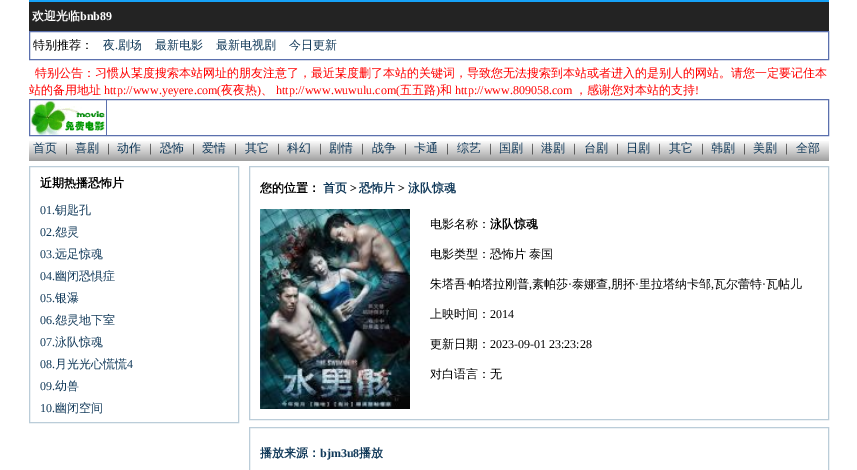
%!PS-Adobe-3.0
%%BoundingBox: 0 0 857 470
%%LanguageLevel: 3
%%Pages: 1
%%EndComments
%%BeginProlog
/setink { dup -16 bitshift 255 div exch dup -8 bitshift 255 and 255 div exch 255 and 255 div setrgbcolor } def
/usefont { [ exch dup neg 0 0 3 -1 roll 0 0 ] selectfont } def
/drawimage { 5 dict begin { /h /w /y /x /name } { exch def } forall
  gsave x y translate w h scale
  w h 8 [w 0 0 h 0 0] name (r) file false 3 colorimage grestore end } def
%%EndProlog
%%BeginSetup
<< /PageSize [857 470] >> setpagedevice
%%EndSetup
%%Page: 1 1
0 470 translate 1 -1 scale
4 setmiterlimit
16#FFFFFF setink
0 0 857 470 rectfill
16#232323 setink
29 2 800 29 rectfill
16#16A2F7 setink
29 0 800 2 rectfill
/WenQuanYiZenHei-Bold 12 usefont
16#FFFFFF setink
32 20 moveto (欢迎光临) show
/LiberationSerif-Bold 12 usefont
80 20 moveto (bnb89) show
16#5B70AE setink
29.5 31.5 799 28 rectstroke
/WenQuanYiZenHei-Medium 12 usefont
16#000000 setink
33 49 moveto (特别推荐：) show
16#113959 setink
103 49 moveto (夜) show
/LiberationSerif-Regular 12 usefont
115 49 moveto (.) show
/WenQuanYiZenHei-Medium 12 usefont
[
    [(剧场) 118 49]
    [(最新电影) 155 49]
    [(最新电视剧) 216 49]
    [(今日更新) 289 49]
] { aload pop moveto show } forall
16#FF0000 setink
35 77 moveto (特别公告：习惯从某度搜索本站网址的朋友注意了，最近某度删了本站的关键词，导致您无法搜索到本站或者进入的是别人的网站。请您一定要记住本) show
29 94 moveto (站的备用地址) show
/LiberationSerif-Regular 12 usefont
104 94 moveto (http://www.yeyere.com\() show
/WenQuanYiZenHei-Medium 12 usefont
221 94 moveto (夜夜热) show
/LiberationSerif-Regular 12 usefont
257 94 moveto (\)) show
/WenQuanYiZenHei-Medium 12 usefont
261 94 moveto (、) show
/LiberationSerif-Regular 12 usefont
276 94 moveto (http://www.wuwulu.com\() show
/WenQuanYiZenHei-Medium 12 usefont
400 94 moveto (五五路) show
/LiberationSerif-Regular 12 usefont
436 94 moveto (\)) show
/WenQuanYiZenHei-Medium 12 usefont
440 94 moveto (和) show
/LiberationSerif-Regular 12 usefont
455 94 moveto (http://www.809058.com) show
/WenQuanYiZenHei-Medium 12 usefont
575 94 moveto (，感谢您对本站的支持) show
/LiberationSerif-Regular 12 usefont
695 94 moveto (!) show
16#5B70AE setink
29.5 99.5 799 36 rectstroke
(img1.raw) 31 101 74 34 drawimage
106 100 1 35 rectfill
(img2.raw) 29 141 800 20 drawimage
/WenQuanYiZenHei-Medium 12 usefont
16#113959 setink
33 152 moveto (首页) show
/LiberationSerif-Regular 12 usefont
16#000000 setink
65 152 moveto (|) show
/WenQuanYiZenHei-Medium 12 usefont
16#113959 setink
75 152 moveto (喜剧) show
/LiberationSerif-Regular 12 usefont
16#000000 setink
107 152 moveto (|) show
/WenQuanYiZenHei-Medium 12 usefont
16#113959 setink
117 152 moveto (动作) show
/LiberationSerif-Regular 12 usefont
16#000000 setink
149 152 moveto (|) show
/WenQuanYiZenHei-Medium 12 usefont
16#113959 setink
160 152 moveto (恐怖) show
/LiberationSerif-Regular 12 usefont
16#000000 setink
192 152 moveto (|) show
/WenQuanYiZenHei-Medium 12 usefont
16#113959 setink
202 152 moveto (爱情) show
/LiberationSerif-Regular 12 usefont
16#000000 setink
234 152 moveto (|) show
/WenQuanYiZenHei-Medium 12 usefont
16#113959 setink
245 152 moveto (其它) show
/LiberationSerif-Regular 12 usefont
16#000000 setink
277 152 moveto (|) show
/WenQuanYiZenHei-Medium 12 usefont
16#113959 setink
287 152 moveto (科幻) show
/LiberationSerif-Regular 12 usefont
16#000000 setink
319 152 moveto (|) show
/WenQuanYiZenHei-Medium 12 usefont
16#113959 setink
329 152 moveto (剧情) show
/LiberationSerif-Regular 12 usefont
16#000000 setink
361 152 moveto (|) show
/WenQuanYiZenHei-Medium 12 usefont
16#113959 setink
372 152 moveto (战争) show
/LiberationSerif-Regular 12 usefont
16#000000 setink
404 152 moveto (|) show
/WenQuanYiZenHei-Medium 12 usefont
16#113959 setink
414 152 moveto (卡通) show
/LiberationSerif-Regular 12 usefont
16#000000 setink
446 152 moveto (|) show
/WenQuanYiZenHei-Medium 12 usefont
16#113959 setink
457 152 moveto (综艺) show
/LiberationSerif-Regular 12 usefont
16#000000 setink
489 152 moveto (|) show
/WenQuanYiZenHei-Medium 12 usefont
16#113959 setink
499 152 moveto (国剧) show
/LiberationSerif-Regular 12 usefont
16#000000 setink
531 152 moveto (|) show
/WenQuanYiZenHei-Medium 12 usefont
16#113959 setink
541 152 moveto (港剧) show
/LiberationSerif-Regular 12 usefont
16#000000 setink
573 152 moveto (|) show
/WenQuanYiZenHei-Medium 12 usefont
16#113959 setink
584 152 moveto (台剧) show
/LiberationSerif-Regular 12 usefont
16#000000 setink
616 152 moveto (|) show
/WenQuanYiZenHei-Medium 12 usefont
16#113959 setink
626 152 moveto (日剧) show
/LiberationSerif-Regular 12 usefont
16#000000 setink
658 152 moveto (|) show
/WenQuanYiZenHei-Medium 12 usefont
16#113959 setink
669 152 moveto (其它) show
/LiberationSerif-Regular 12 usefont
16#000000 setink
701 152 moveto (|) show
/WenQuanYiZenHei-Medium 12 usefont
16#113959 setink
711 152 moveto (韩剧) show
/LiberationSerif-Regular 12 usefont
16#000000 setink
743 152 moveto (|) show
/WenQuanYiZenHei-Medium 12 usefont
16#113959 setink
753 152 moveto (美剧) show
/LiberationSerif-Regular 12 usefont
16#000000 setink
785 152 moveto (|) show
/WenQuanYiZenHei-Medium 12 usefont
16#113959 setink
796 152 moveto (全部) show
16#BBCDD9 setink
29.5 166.5 209 256 rectstroke
/WenQuanYiZenHei-Bold 12 usefont
16#000000 setink
40 187 moveto (近期热播恐怖片) show
/LiberationSerif-Regular 12 usefont
16#113959 setink
40 214 moveto (01.) show
/WenQuanYiZenHei-Medium 12 usefont
55 214 moveto (钥匙孔) show
/LiberationSerif-Regular 12 usefont
40 236 moveto (02.) show
/WenQuanYiZenHei-Medium 12 usefont
55 236 moveto (怨灵) show
/LiberationSerif-Regular 12 usefont
40 258 moveto (03.) show
/WenQuanYiZenHei-Medium 12 usefont
55 258 moveto (远足惊魂) show
/LiberationSerif-Regular 12 usefont
40 280 moveto (04.) show
/WenQuanYiZenHei-Medium 12 usefont
55 280 moveto (幽闭恐惧症) show
/LiberationSerif-Regular 12 usefont
40 302 moveto (05.) show
/WenQuanYiZenHei-Medium 12 usefont
55 302 moveto (银瀑) show
/LiberationSerif-Regular 12 usefont
40 324 moveto (06.) show
/WenQuanYiZenHei-Medium 12 usefont
55 324 moveto (怨灵地下室) show
/LiberationSerif-Regular 12 usefont
40 346 moveto (07.) show
/WenQuanYiZenHei-Medium 12 usefont
55 346 moveto (泳队惊魂) show
/LiberationSerif-Regular 12 usefont
40 368 moveto (08.) show
/WenQuanYiZenHei-Medium 12 usefont
55 368 moveto (月光光心慌慌) show
/LiberationSerif-Regular 12 usefont
127 368 moveto (4) show
40 390 moveto (09.) show
/WenQuanYiZenHei-Medium 12 usefont
55 390 moveto (幼兽) show
/LiberationSerif-Regular 12 usefont
40 412 moveto (10.) show
/WenQuanYiZenHei-Medium 12 usefont
55 412 moveto (幽闭空间) show
16#BBCDD9 setink
249.5 166.5 579 253 rectstroke
/WenQuanYiZenHei-Bold 12 usefont
16#000000 setink
260 192 moveto (您的位置：) show
16#113959 setink
323 192 moveto (首页) show
/LiberationSerif-Bold 12 usefont
16#000000 setink
350 192 moveto (>) show
/WenQuanYiZenHei-Bold 12 usefont
16#113959 setink
359 192 moveto (恐怖片) show
/LiberationSerif-Bold 12 usefont
16#000000 setink
398 192 moveto (>) show
/WenQuanYiZenHei-Bold 12 usefont
16#113959 setink
408 192 moveto (泳队惊魂) show
(img3.raw) 260 209 150 200 drawimage
/WenQuanYiZenHei-Medium 12 usefont
16#000000 setink
430 228 moveto (电影名称：) show
/WenQuanYiZenHei-Bold 12 usefont
490 228 moveto (泳队惊魂) show
/WenQuanYiZenHei-Medium 12 usefont
430 258 moveto -1 0 32 (电影类型：恐怖片 泰国) widthshow
430 288 moveto (朱塔吾) show
/LiberationSerif-Regular 12 usefont
466 288 moveto (·) show
/WenQuanYiZenHei-Medium 12 usefont
469 288 moveto (帕塔拉刚普) show
532 288 moveto (素帕莎) show
/LiberationSerif-Regular 12 usefont
568 288 moveto (·) show
/WenQuanYiZenHei-Medium 12 usefont
572 288 moveto (泰娜查) show
611 288 moveto (朋抔) show
/LiberationSerif-Regular 12 usefont
635 288 moveto (·) show
/WenQuanYiZenHei-Medium 12 usefont
639 288 moveto (里拉塔纳卡邹) show
714 288 moveto (瓦尔蕾特) show
/LiberationSerif-Regular 12 usefont
762 288 moveto (·) show
/WenQuanYiZenHei-Medium 12 usefont
766 288 moveto (瓦帖儿) show
/LiberationSerif-Regular 12 usefont
[
    [(,) 529 288]
    [(,) 608 288]
    [(,) 711 288]
] { aload pop moveto show } forall
/WenQuanYiZenHei-Medium 12 usefont
430 318 moveto (上映时间：) show
/LiberationSerif-Regular 12 usefont
490 318 moveto (2014) show
/WenQuanYiZenHei-Medium 12 usefont
430 348 moveto (更新日期：) show
/LiberationSerif-Regular 12 usefont
490 348 moveto (2023-09-01 23:23:28) show
/WenQuanYiZenHei-Medium 12 usefont
430 378 moveto (对白语言：无) show
16#BBCDD9 setink
249.5 427.5 579 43 rectstroke
/WenQuanYiZenHei-Bold 12 usefont
16#113959 setink
260 457 moveto (播放来源：) show
/LiberationSerif-Bold 12 usefont
320 457 moveto (bjm3u8) show
/WenQuanYiZenHei-Bold 12 usefont
359 457 moveto (播放) show
showpage
%%EOF
